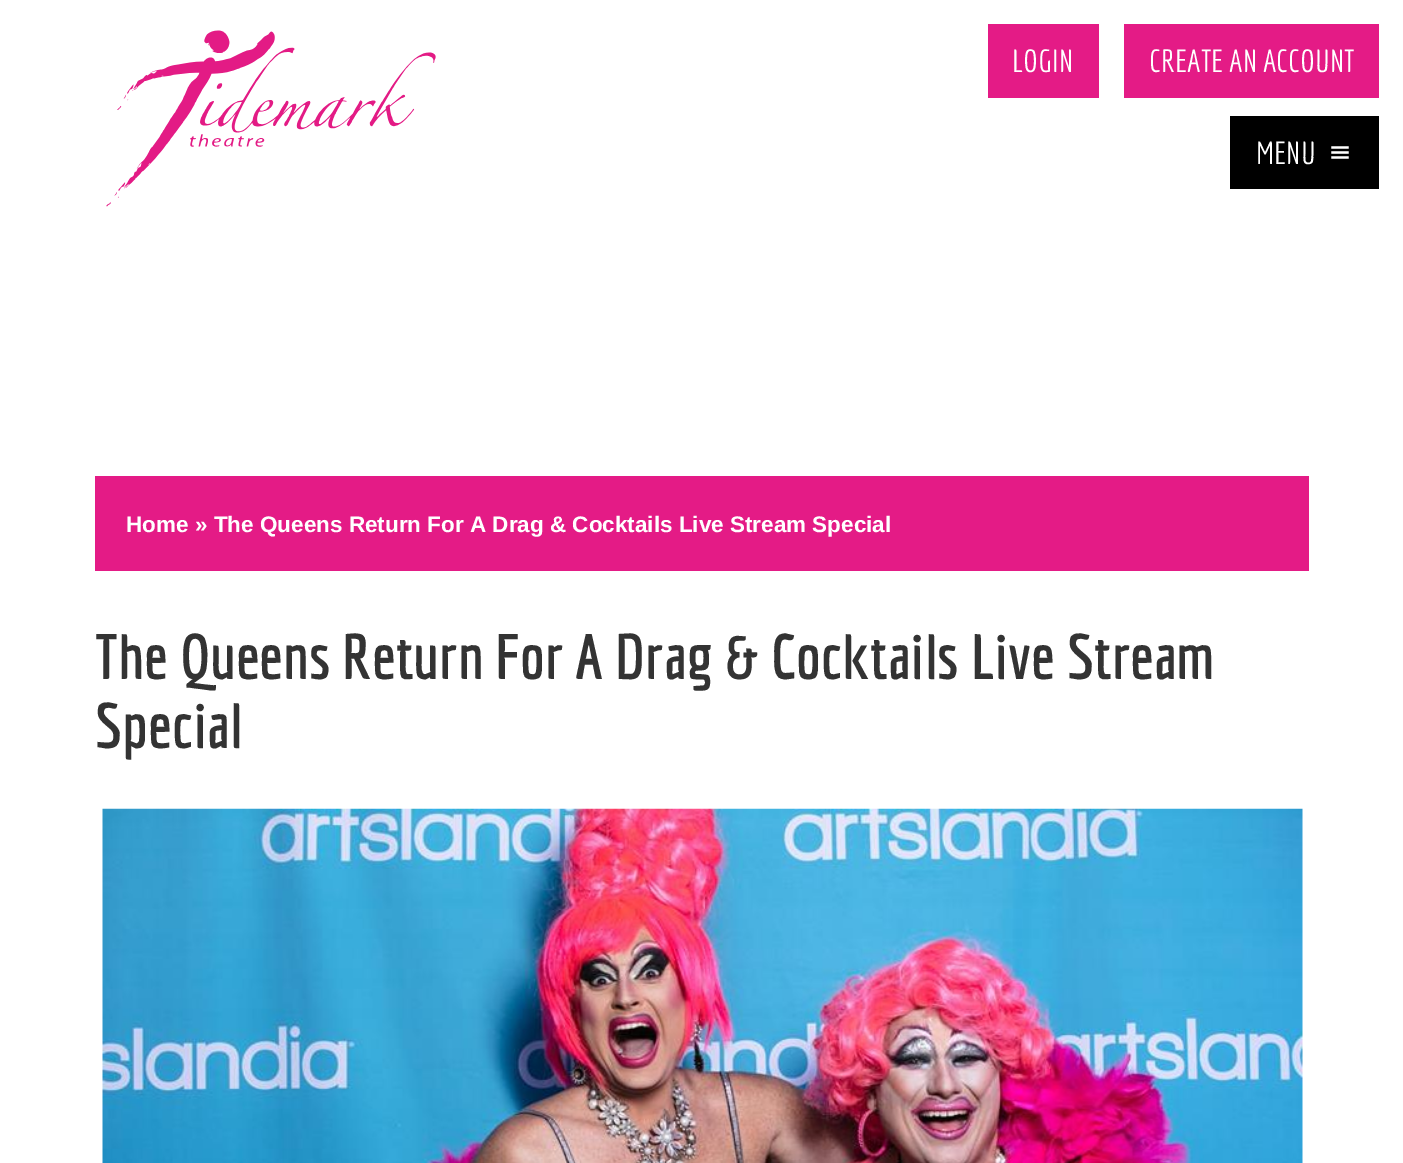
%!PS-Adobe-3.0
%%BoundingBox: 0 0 1403 1163
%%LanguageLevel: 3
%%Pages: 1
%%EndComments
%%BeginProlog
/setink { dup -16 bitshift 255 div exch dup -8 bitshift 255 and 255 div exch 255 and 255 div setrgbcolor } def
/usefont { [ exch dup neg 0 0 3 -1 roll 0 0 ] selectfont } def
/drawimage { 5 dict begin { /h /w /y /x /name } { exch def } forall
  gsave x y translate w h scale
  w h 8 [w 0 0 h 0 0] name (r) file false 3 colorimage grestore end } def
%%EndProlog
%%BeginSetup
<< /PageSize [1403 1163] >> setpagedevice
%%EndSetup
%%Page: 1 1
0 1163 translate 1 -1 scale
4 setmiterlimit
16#FFFFFF setink
0 0 1403 1163 rectfill
(img1.raw) 106 30 330 177 drawimage
16#E41B86 setink
988 24 111 74 rectfill
/Economica-Regular 31.25 usefont
16#FFFFFF setink
1012 72 moveto (LOGIN) show
16#E41B86 setink
1124 24 255 74 rectfill
16#FFFFFF setink
1149 72 moveto (CREATE AN ACCOUNT) show
16#000000 setink
1230 116 149 73 rectfill
16#FFFFFF setink
1256 164 moveto (MENU) show
(img2.raw) 1331 146 18 13 drawimage
16#E41B86 setink
95 476 1214 95 rectfill
/LiberationSans-Bold 22.5 usefont
16#FFFFFF setink
126 532 moveto (Home » The Queens Return For A Drag & Cocktails Live Stream Special) show
/Economica-Bold 62.5 usefont
16#333333 setink
95 679 moveto (The Queens Return For A Drag & Cocktails Live Stream) show
95 748 moveto (Special) show
(img3.raw) 102 808 1201 355 drawimage
showpage
%%EOF
